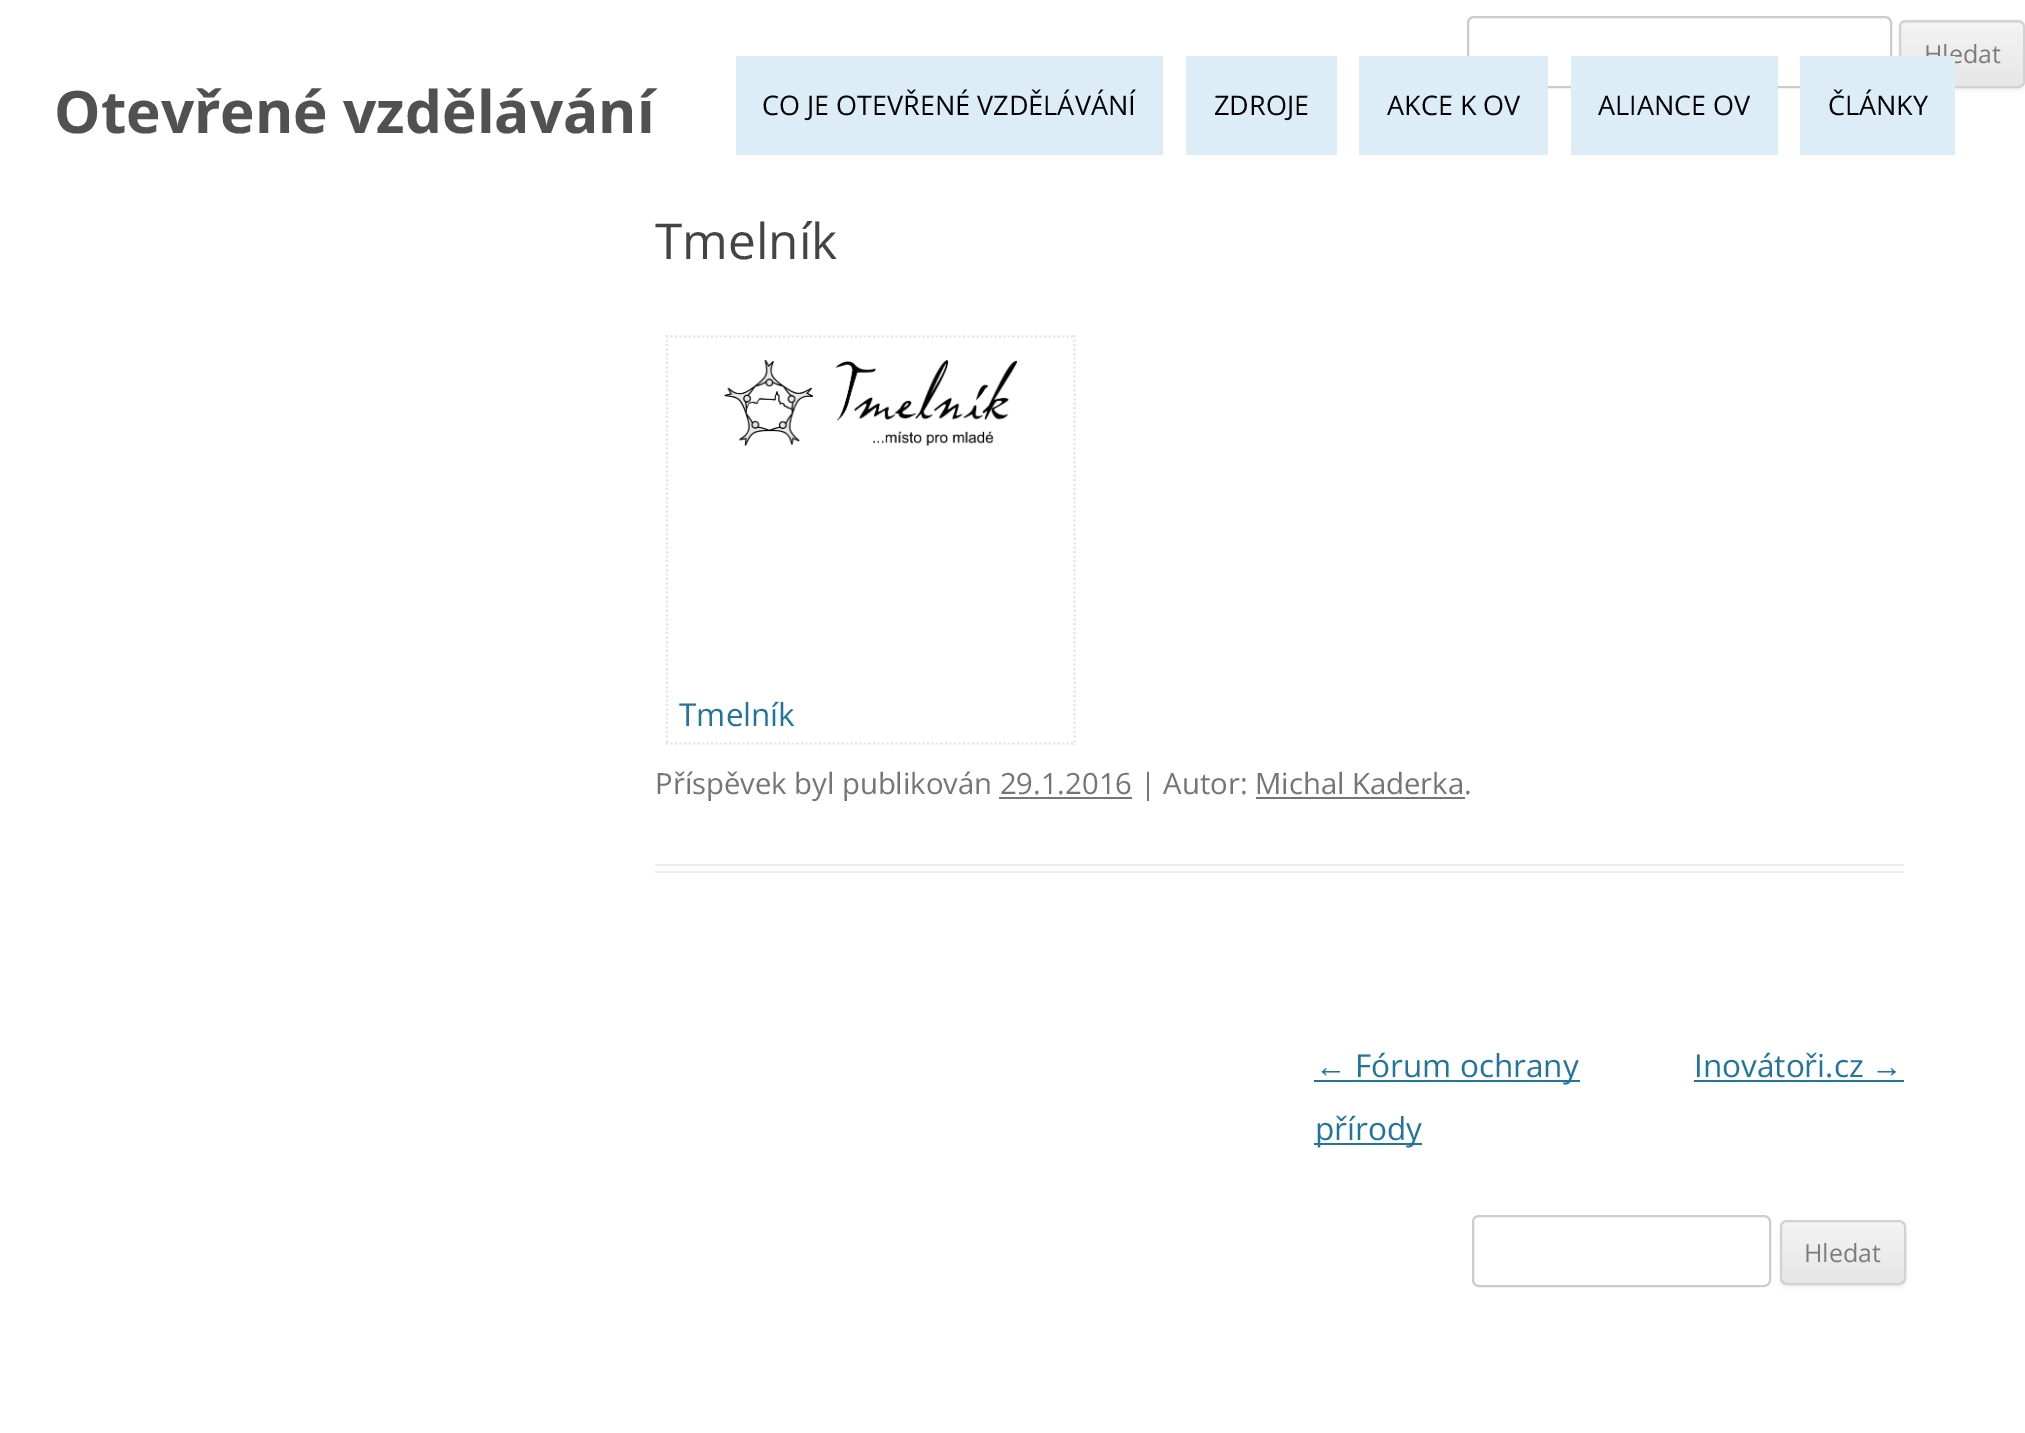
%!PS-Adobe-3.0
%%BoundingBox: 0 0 2025 1433
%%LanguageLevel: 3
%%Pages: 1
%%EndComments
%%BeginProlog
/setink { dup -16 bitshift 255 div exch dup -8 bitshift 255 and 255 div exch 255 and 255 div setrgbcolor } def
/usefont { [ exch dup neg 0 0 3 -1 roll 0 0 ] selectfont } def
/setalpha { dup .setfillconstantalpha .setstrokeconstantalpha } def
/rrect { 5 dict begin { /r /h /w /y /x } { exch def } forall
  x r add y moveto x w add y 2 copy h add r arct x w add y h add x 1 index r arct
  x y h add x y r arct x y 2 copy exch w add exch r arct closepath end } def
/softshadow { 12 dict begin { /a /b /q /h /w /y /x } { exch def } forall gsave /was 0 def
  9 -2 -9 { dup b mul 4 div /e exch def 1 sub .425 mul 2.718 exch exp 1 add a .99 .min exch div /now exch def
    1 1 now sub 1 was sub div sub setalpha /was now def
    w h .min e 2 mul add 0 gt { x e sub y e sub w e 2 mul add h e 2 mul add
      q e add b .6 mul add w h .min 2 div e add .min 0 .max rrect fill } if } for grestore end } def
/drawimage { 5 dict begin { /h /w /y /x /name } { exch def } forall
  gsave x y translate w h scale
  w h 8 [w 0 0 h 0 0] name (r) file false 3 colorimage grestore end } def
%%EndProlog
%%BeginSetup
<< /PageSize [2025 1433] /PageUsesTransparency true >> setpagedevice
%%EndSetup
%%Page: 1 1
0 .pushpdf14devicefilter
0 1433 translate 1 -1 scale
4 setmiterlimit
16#FFFFFF setink
0 0 2025 1433 rectfill
16#CCCCCC setink
2 setlinewidth
1468 17 423 70 6 rrect stroke
16#404040 setink
1899 23 126 67 7 2 0.1 softshadow
16#E6E6E6 setink
1899 20 126 68 7 rrect fill
gsave
1899 20 126 68 7 rrect clip newpath
gsave 1899 23 moveto 2025 23 lineto 2025 86 lineto 1899 86 lineto closepath clip newpath
<< /ShadingType 2 /ColorSpace /DeviceRGB /Coords [1962 22 1962 86] /Extend [true true] /Function << /FunctionType 2 /Domain [0 1] /C0 [0.957 0.957 0.957] /C1 [0.902 0.902 0.902] /N 1 >> >> shfill grestore
grestore
16#D2D2D2 setink
1900 21 124 66 6 rrect stroke
/OpenSans-Regular 25 usefont
16#7C7C7C setink
1924 63 moveto (Hledat) show
/OpenSans-Bold 58.5 usefont
16#515151 setink
54 133 moveto (Otevřené vzdělávání) show
16#DDEDF8 setink
736 56 427 99 rectfill
/OpenSans-Regular 27 usefont
16#000000 setink
762 115 moveto (CO JE OTEVŘENÉ VZDĚLÁVÁNÍ) show
16#DDEDF8 setink
1186 56 151 99 rectfill
16#000000 setink
1214 115 moveto (ZDROJE) show
16#DDEDF8 setink
1359 56 189 99 rectfill
16#000000 setink
1387 115 moveto (AKCE K OV) show
16#DDEDF8 setink
1571 56 207 99 rectfill
16#000000 setink
1598 115 moveto (ALIANCE OV) show
16#DDEDF8 setink
1800 56 155 99 rectfill
16#000000 setink
1828 115 moveto (ČLÁNKY) show
16#EDEDED setink
655 864 1249 2 rectfill
655 871 1249 2 rectfill
/OpenSans-Regular 49.5 usefont
16#444444 setink
655 259 moveto (Tmelník) show
16#E6E6E6 setink
2.2 setlinewidth
[2.25 2.25] 0 setdash
666 336.5 moveto 1075.5 336.5 lineto stroke
1074.5 335 moveto 1074.5 745 lineto stroke
666 743.5 moveto 1075.5 743.5 lineto stroke
667 335 moveto 667 745 lineto stroke
(img1.raw) 724 360 293 86 drawimage
/OpenSans-Regular 31.5 usefont
16#21759B setink
679 726 moveto (Tmelník) show
/OpenSans-Regular 29.25 usefont
16#757575 setink
655 794 moveto (Příspěvek byl publikován 29.1.2016 | Autor: Michal Kaderka.) show
999 797 133 2 rectfill
1256 797 209 2 rectfill
/LiberationSans-Regular 31.5 usefont
16#21759B setink
1315 1077 moveto (←) show
1314 1080 266 2 rectfill
/OpenSans-Regular 31.5 usefont
1355 1077 moveto (Fórum ochrany) show
1314 1143 108 2 rectfill
1315 1140 moveto (přírody) show
1694 1077 moveto (Inovátoři.cz) show
/LiberationSans-Regular 31.5 usefont
1871 1077 moveto (→) show
1694 1080 210 2 rectfill
16#CCCCCC setink
2 setlinewidth
[] 0 setdash
1473 1216 297 70 6 rrect stroke
16#404040 setink
1780 1222 126 65 7 2 0.1 softshadow
gsave
1780 1220 126 65 7 rrect clip newpath
gsave 1780 1222 moveto 1906 1222 lineto 1906 1283 lineto 1780 1283 lineto closepath clip newpath
<< /ShadingType 2 /ColorSpace /DeviceRGB /Coords [1843 1222 1843 1283] /Extend [true true] /Function << /FunctionType 2 /Domain [0 1] /C0 [0.957 0.957 0.957] /C1 [0.902 0.902 0.902] /N 1 >> >> shfill grestore
grestore
16#D2D2D2 setink
1781 1221 124 63 6 rrect stroke
/OpenSans-Regular 25 usefont
16#7C7C7C setink
1804 1262 moveto (Hledat) show
.poppdf14devicefilter showpage
%%EOF
